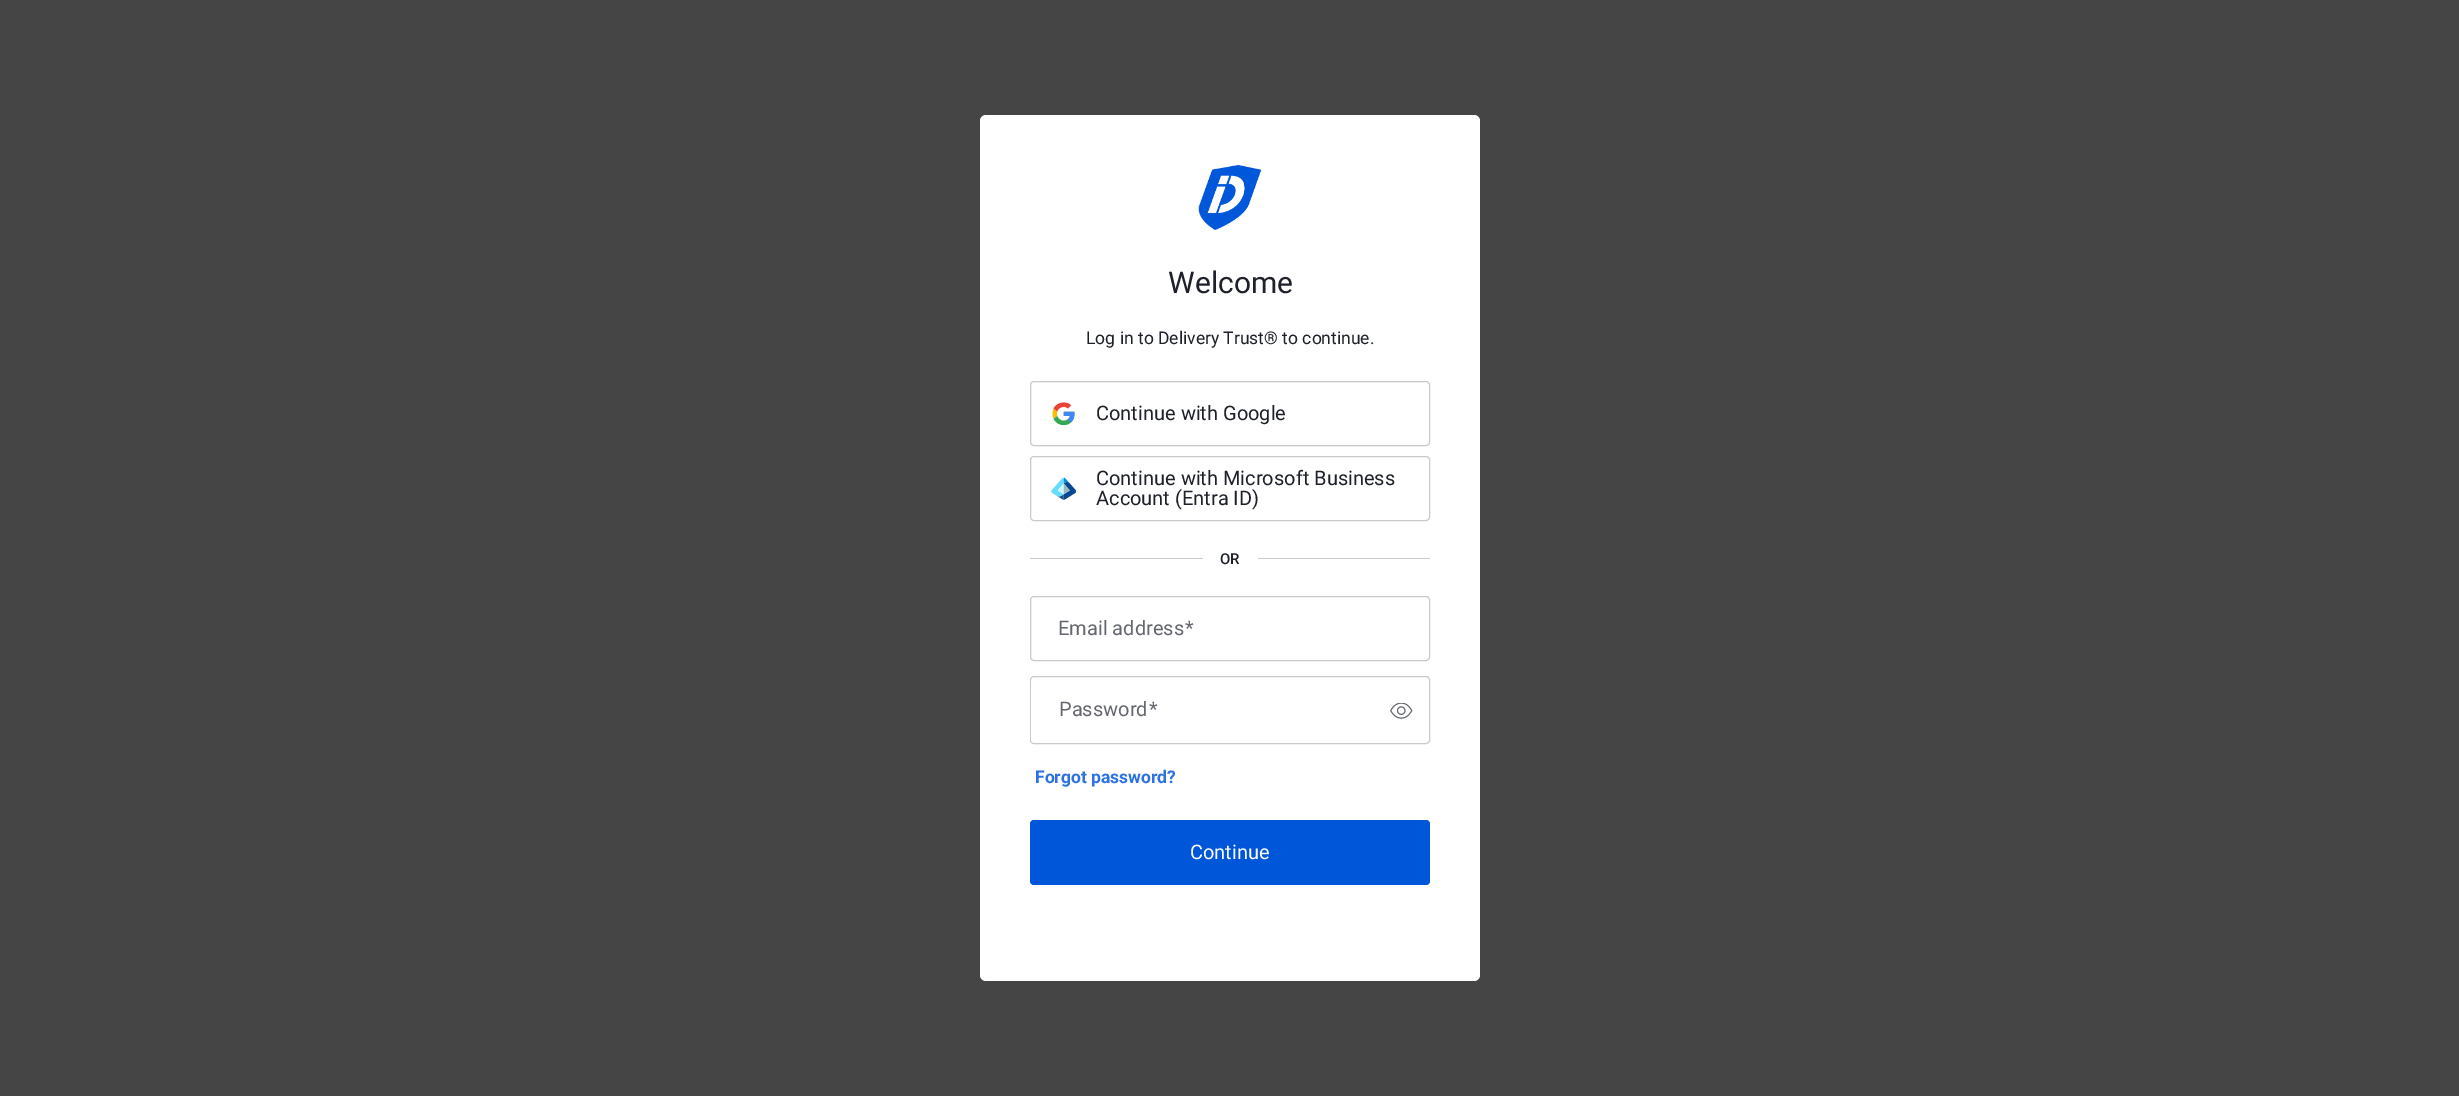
%!PS-Adobe-3.0
%%BoundingBox: 0 0 2459 1096
%%LanguageLevel: 3
%%Pages: 1
%%EndComments
%%BeginProlog
/setink { dup -16 bitshift 255 div exch dup -8 bitshift 255 and 255 div exch 255 and 255 div setrgbcolor } def
/usefont { [ exch dup neg 0 0 3 -1 roll 0 0 ] selectfont } def
/rrect { 5 dict begin { /r /h /w /y /x } { exch def } forall
  x r add y moveto x w add y 2 copy h add r arct x w add y h add x 1 index r arct
  x y h add x y r arct x y 2 copy exch w add exch r arct closepath end } def
/drawimage { 5 dict begin { /h /w /y /x /name } { exch def } forall
  gsave x y translate w h scale
  w h 8 [w 0 0 h 0 0] name (r) file false 3 colorimage grestore end } def
%%EndProlog
%%BeginSetup
<< /PageSize [2459 1096] >> setpagedevice
%%EndSetup
%%Page: 1 1
0 1096 translate 1 -1 scale
4 setmiterlimit
16#454545 setink
0 0 2459 1096 rectfill
16#FFFFFF setink
980 115 500 866 6 rrect fill
(img1.raw) 1198 165 64 65 drawimage
/Roboto-Regular 30 usefont
16#1E212A setink
1168 293 moveto (Welcome) show
/Roboto-Regular 17.5 usefont
1086 344 moveto (Log in to Delivery Trust® to continue.) show
16#C9CACE setink
1030.5 381.5 399 64 3.5 rrect stroke
(img2.raw) 1052 402 23 24 drawimage
/Roboto-Regular 20 usefont
16#1E212A setink
1096 420 moveto (Continue with Google) show
16#C9CACE setink
1030.5 456.5 399 64 3.5 rrect stroke
(img3.raw) 1051 477 25 23 drawimage
16#1E212A setink
1096 485 moveto (Continue with Microsoft Business) show
1096 505 moveto (Account \(Entra ID\)) show
16#C9CACE setink
1030 558 173 1 rectfill
/Roboto-Medium 15 usefont
16#1E212A setink
1220 564 moveto (OR) show
16#C9CACE setink
1258 558 172 1 rectfill
1030.5 596.5 399 64 3.5 rrect stroke
/Roboto-Regular 20 usefont
16#65676E setink
1058 635 moveto (Email address) show
1185 635 moveto (*) show
16#C9CACE setink
1030.5 676.5 399 67 3.5 rrect stroke
16#FFFFFF setink
1031 678 343 65 4 rrect fill
16#65676E setink
1059 716 moveto (Password) show
1149 716 moveto (*) show
(img4.raw) 1390 703 23 16 drawimage
/Roboto-Bold 17.5 usefont
16#2C72E2 setink
1035 783 moveto (Forgot password?) show
16#0056D9 setink
1030 820 400 65 4 rrect fill
/Roboto-Regular 20 usefont
16#FFFFFF setink
1190 859 moveto (Continue) show
showpage
%%EOF
